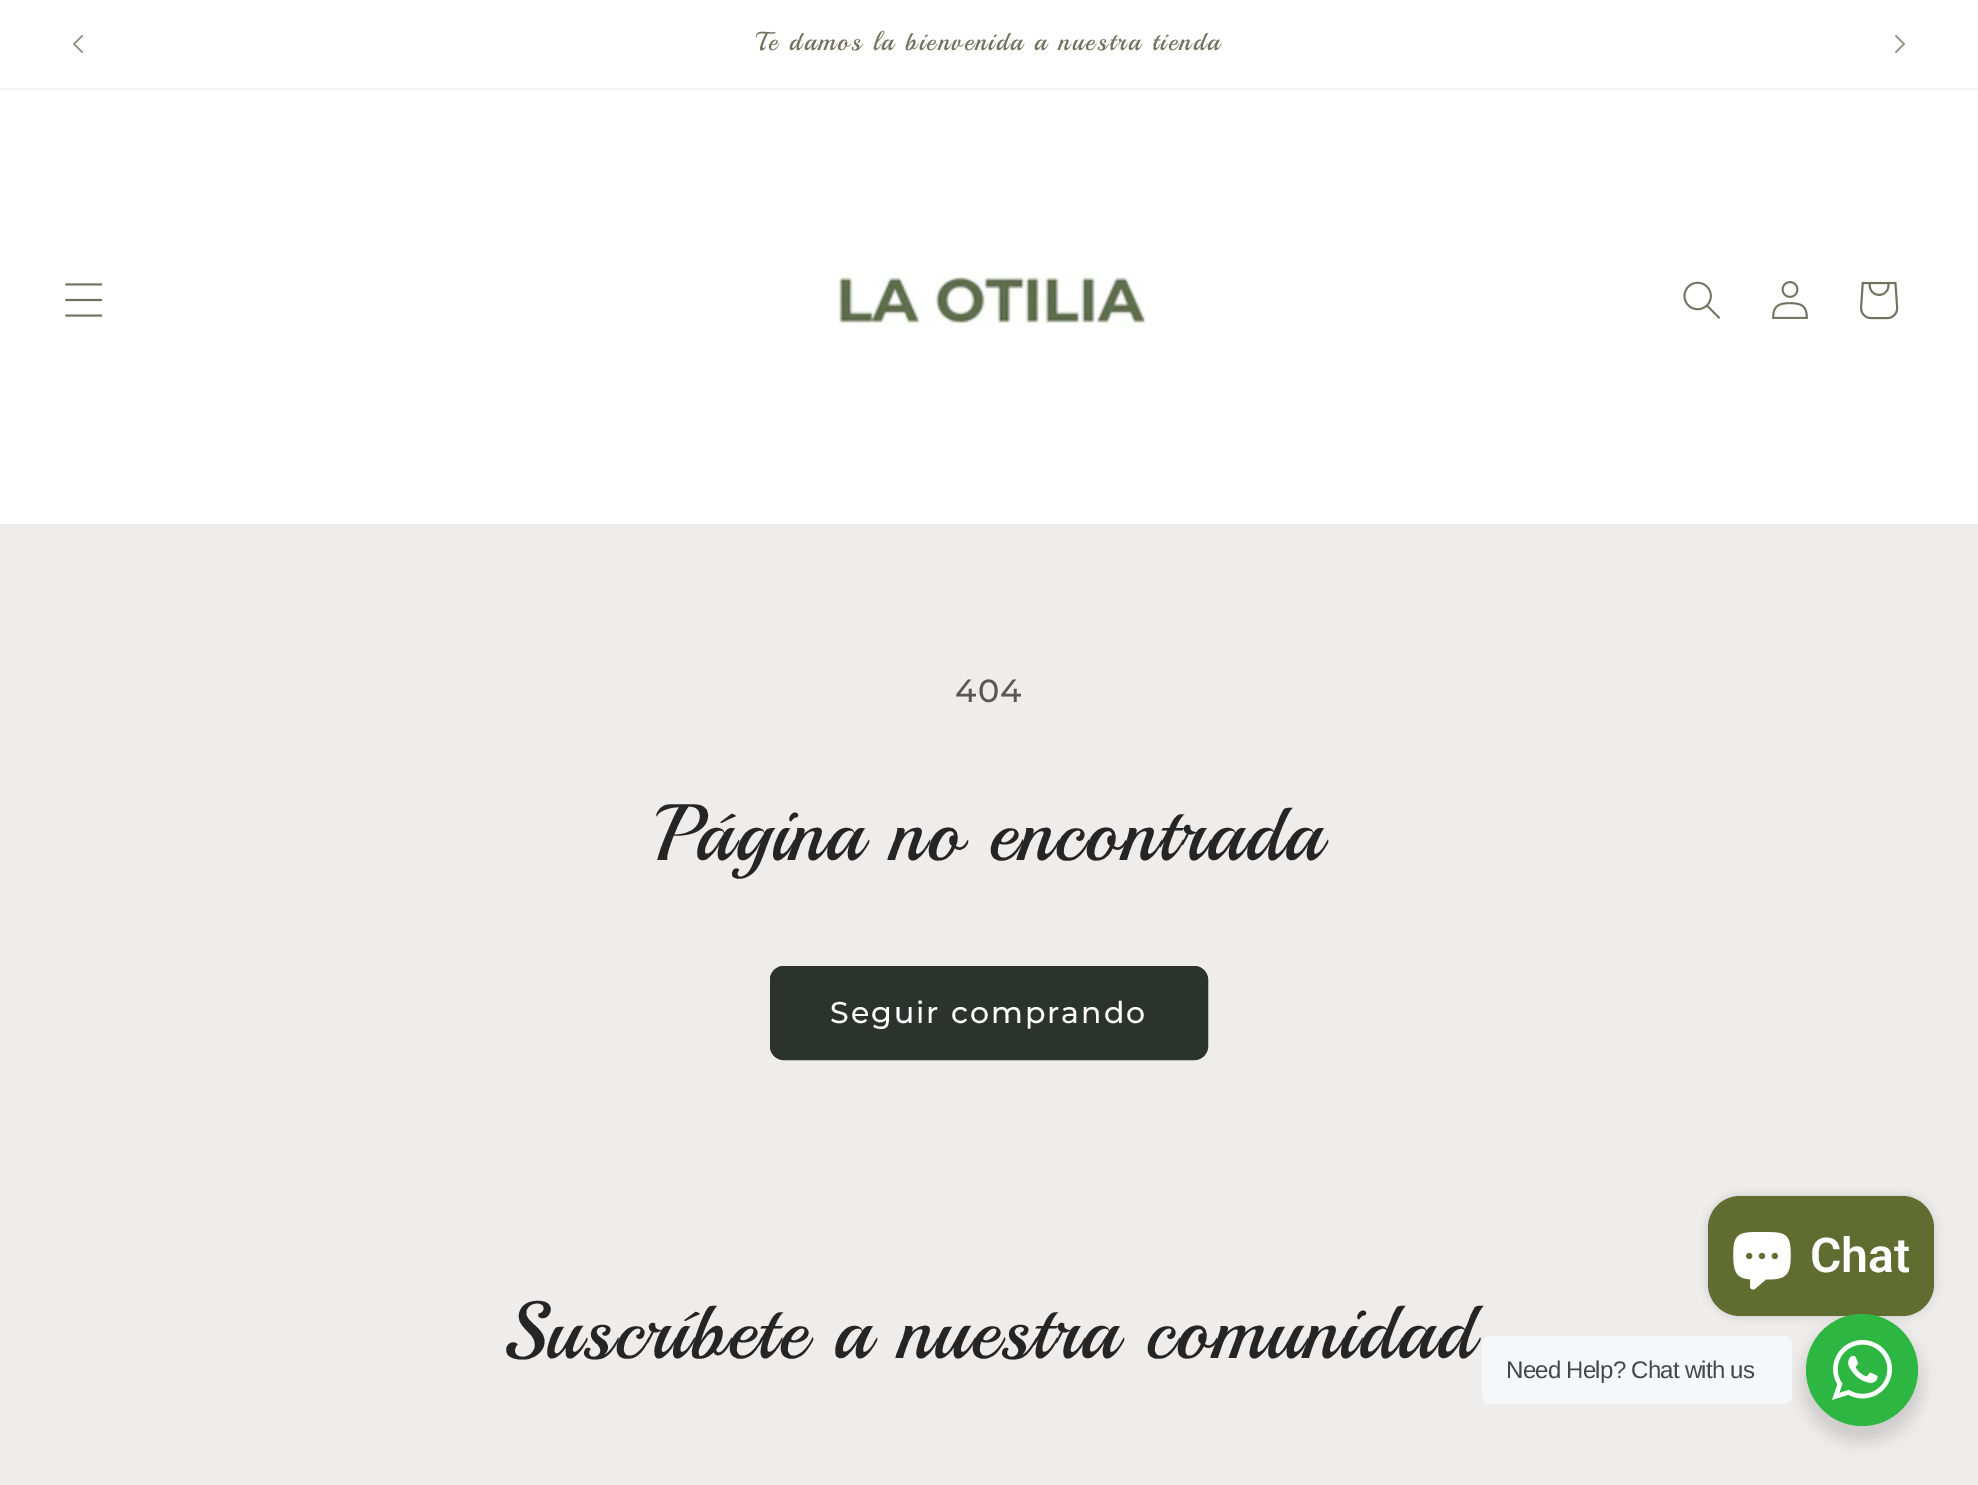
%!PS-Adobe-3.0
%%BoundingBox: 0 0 1978 1485
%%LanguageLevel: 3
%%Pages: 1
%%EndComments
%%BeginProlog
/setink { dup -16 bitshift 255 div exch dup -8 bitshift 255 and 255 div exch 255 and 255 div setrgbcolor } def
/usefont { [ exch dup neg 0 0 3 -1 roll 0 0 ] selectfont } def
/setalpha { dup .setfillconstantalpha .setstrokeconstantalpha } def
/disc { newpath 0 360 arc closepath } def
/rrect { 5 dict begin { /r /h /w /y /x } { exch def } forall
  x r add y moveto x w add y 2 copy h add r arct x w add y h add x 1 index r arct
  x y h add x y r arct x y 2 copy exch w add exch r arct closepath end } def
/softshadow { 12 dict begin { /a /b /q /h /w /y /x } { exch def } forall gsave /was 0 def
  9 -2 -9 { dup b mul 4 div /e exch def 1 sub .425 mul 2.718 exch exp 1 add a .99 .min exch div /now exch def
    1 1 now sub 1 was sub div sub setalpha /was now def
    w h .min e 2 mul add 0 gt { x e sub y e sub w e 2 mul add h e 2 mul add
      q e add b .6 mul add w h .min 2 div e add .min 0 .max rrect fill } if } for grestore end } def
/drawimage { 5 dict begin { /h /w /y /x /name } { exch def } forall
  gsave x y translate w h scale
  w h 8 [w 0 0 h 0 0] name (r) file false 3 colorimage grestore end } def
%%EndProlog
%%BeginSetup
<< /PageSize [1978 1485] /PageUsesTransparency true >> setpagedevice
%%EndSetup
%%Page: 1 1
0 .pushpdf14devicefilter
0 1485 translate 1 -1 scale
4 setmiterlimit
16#EFECEC setink
0 0 1978 1485 rectfill
16#FFFFFF setink
0 0 1978 88 rectfill
16#F4F4F2 setink
0 88 1978 2 rectfill
(img1.raw) 73 35 10 18 drawimage
/Playball-Regular 26 usefont
16#71725F setink
756 50 moveto 2 0 (Te damos la bienvenida a nuestra tienda) ashow
(img2.raw) 1895 35 10 18 drawimage
16#FFFFFF setink
0 90 1978 434 rectfill
(img3.raw) 65 283 38 34 drawimage
(img4.raw) 838 272 309 54 drawimage
(img5.raw) 1683 281 37 38 drawimage
(img6.raw) 1772 281 36 38 drawimage
(img7.raw) 1860 281 39 39 drawimage
/Montserrat-Medium 32 usefont
16#585757 setink
955 702 moveto 1.2 0 (404) ashow
/Playball-Regular 80 usefont
16#252525 setink
655 860 moveto 1.2 0 (Página no encontrada) ashow
16#2C332F setink
770 966 438 94 14 rrect fill
2 setlinewidth
771 967 436 92 13 rrect stroke
/Montserrat-Medium 30 usefont
16#FFFFFF setink
830 1023 moveto 2 0 (Seguir comprando) ashow
16#000000 setink
1708 1196 226 120 32 5 0.15 softshadow
16#606C30 setink
1708 1196 226 120 32 rrect fill
(img8.raw) 1733 1232 58 58 drawimage
/Roboto-SemiBold 48 usefont
16#FFFFFF setink
1810 1272 moveto (Chat) show
/Playball-Regular 80 usefont
16#252525 setink
502 1358 moveto 1.2 0 (Suscríbete a nuestra comunidad) ashow
16#000000 setink
1802 1322 120 120 60 8 0.14 softshadow
16#F5F7F9 setink
1482 1336 310 68 8 rrect fill
/LiberationSans-Regular 24 usefont
16#43474E setink
1506 1378 moveto -0.75 0 (Need Help? Chat with us) ashow
16#2DB742 setink
1862 1370 56 disc fill
(img9.raw) 1832 1340 60 60 drawimage
.poppdf14devicefilter showpage
%%EOF
